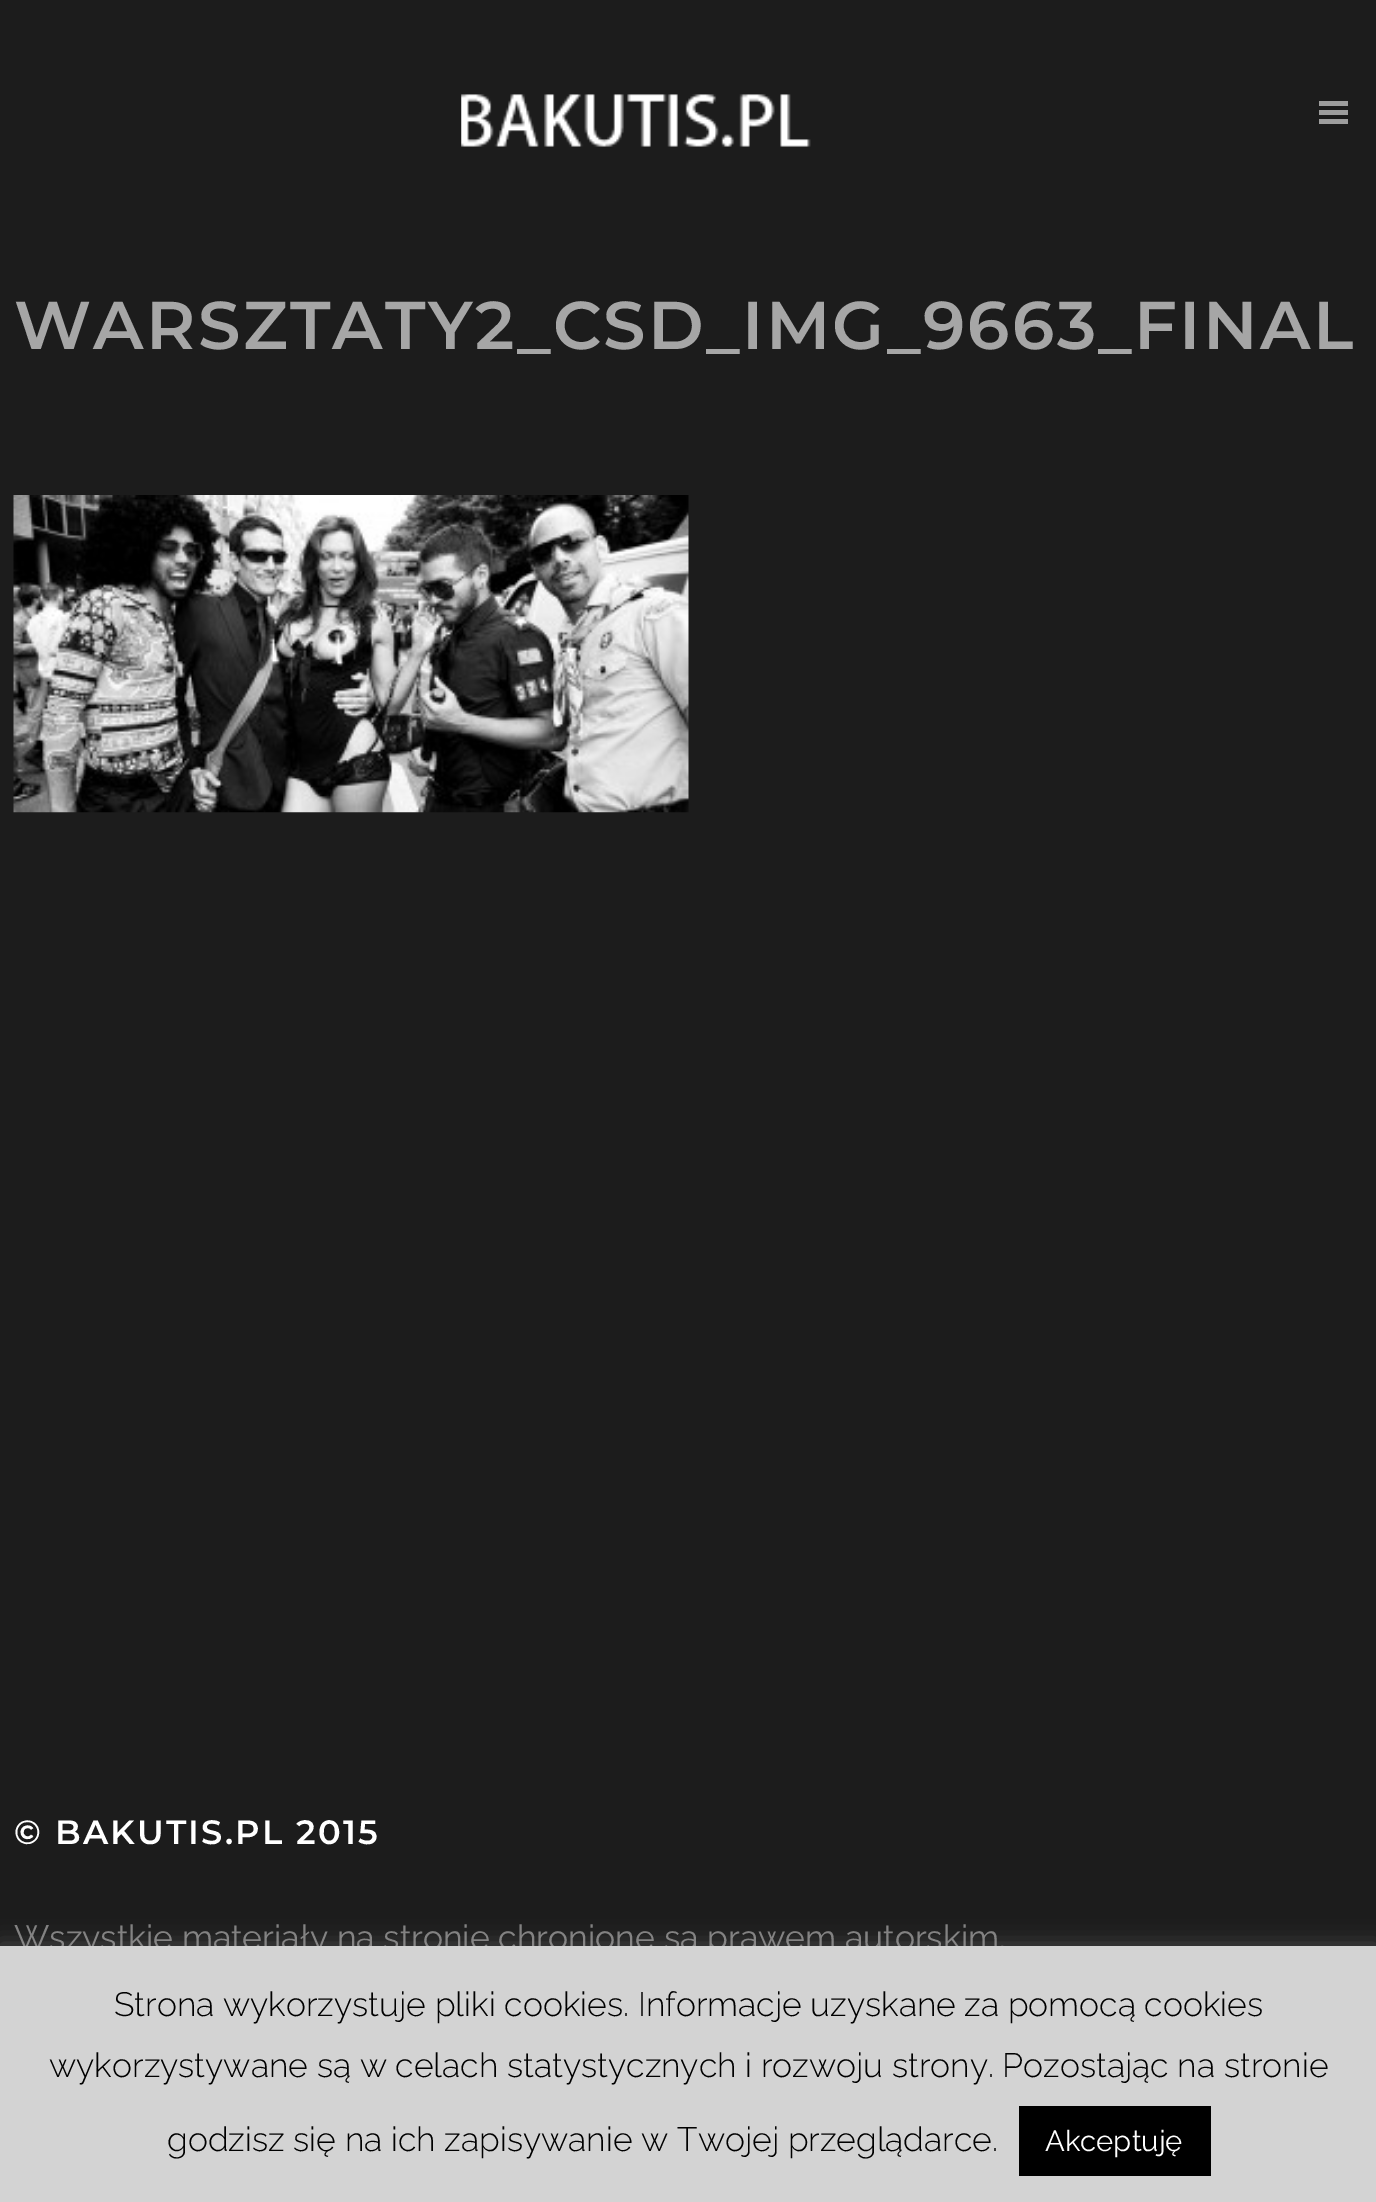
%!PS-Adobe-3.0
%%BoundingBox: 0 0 1376 2202
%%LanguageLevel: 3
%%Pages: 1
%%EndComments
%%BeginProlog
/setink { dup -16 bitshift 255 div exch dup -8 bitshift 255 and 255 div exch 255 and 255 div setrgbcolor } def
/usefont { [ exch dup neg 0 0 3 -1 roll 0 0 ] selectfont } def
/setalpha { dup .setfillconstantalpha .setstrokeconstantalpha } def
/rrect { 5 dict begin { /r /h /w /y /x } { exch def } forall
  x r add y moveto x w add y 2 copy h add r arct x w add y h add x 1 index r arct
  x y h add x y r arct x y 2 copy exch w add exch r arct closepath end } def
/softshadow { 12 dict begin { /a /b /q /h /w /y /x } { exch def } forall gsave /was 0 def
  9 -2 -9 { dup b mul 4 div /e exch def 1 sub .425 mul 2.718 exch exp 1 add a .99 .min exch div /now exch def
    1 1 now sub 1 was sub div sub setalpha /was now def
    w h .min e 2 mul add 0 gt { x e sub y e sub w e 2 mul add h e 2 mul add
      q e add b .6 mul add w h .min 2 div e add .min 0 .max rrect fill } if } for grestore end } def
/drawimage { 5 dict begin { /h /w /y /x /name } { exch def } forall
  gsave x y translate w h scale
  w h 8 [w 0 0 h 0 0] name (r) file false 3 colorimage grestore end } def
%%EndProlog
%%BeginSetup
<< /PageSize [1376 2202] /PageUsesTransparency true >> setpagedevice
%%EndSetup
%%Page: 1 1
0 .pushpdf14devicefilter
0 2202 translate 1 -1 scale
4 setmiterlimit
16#1C1C1C setink
0 0 1376 2202 rectfill
(img1.raw) 461 94 350 53 drawimage
[
    [1319 110 29 5 16#9D9D9D]
    [1319 101 29 5 16#9D9D9D]
    [1319 119 29 5 16#9D9D9D]
] { aload pop setink rectfill } forall
/Montserrat-SemiBold 67.5 usefont
16#A6A6A6 setink
14 349 moveto 2.25 0 (WARSZTATY2_CSD_IMG_9663_FINAL) ashow
(img2.raw) 13 495 676 318 drawimage
/Montserrat-SemiBold 33.75 usefont
16#FFFFFF setink
14 1844 moveto 2.25 0 (© BAKUTIS.PL 2015) ashow
/Raleway-Regular 33.75 usefont
16#818181 setink
14 1949 moveto (Wszystkie materiały na stronie chronione są prawem autorskim.) show
16#ACABAB setink
0 1944 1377 257 0 11 0.3 softshadow
16#D3D3D3 setink
0 1946 1376 256 rectfill
/Raleway-Light 33.75 usefont
16#000000 setink
[
    [(Strona wykorzystuje pliki cookies. Informacje uzyskane za pomocą cookies) 114 2016]
    [(wykorzystywane są w celach statystycznych i rozwoju strony. Pozostając na stronie) 49 2077]
    [(godzisz się na ich zapisywanie w Twojej przeglądarce.) 167 2151]
] { aload pop moveto show } forall
1019 2106 192 70 rectfill
/Raleway-Regular 29.25 usefont
16#FFFFFF setink
1045 2151 moveto (Akceptuję) show
.poppdf14devicefilter showpage
%%EOF
